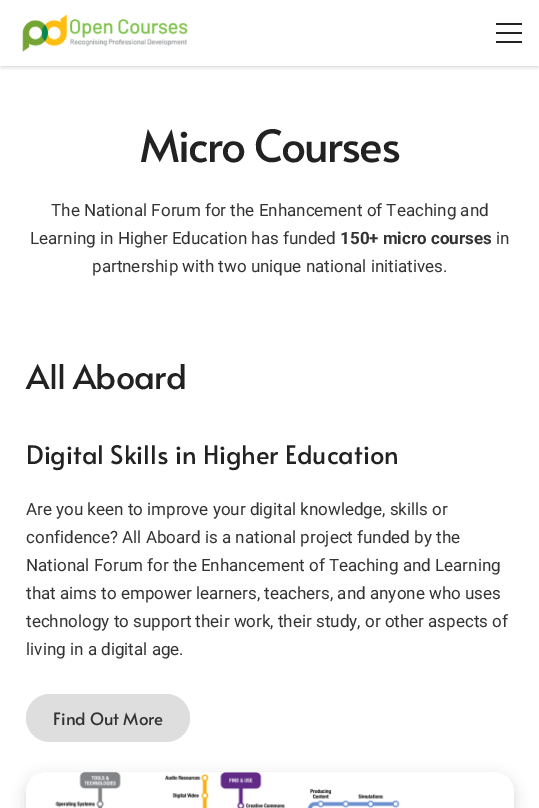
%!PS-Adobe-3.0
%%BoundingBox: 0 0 539 808
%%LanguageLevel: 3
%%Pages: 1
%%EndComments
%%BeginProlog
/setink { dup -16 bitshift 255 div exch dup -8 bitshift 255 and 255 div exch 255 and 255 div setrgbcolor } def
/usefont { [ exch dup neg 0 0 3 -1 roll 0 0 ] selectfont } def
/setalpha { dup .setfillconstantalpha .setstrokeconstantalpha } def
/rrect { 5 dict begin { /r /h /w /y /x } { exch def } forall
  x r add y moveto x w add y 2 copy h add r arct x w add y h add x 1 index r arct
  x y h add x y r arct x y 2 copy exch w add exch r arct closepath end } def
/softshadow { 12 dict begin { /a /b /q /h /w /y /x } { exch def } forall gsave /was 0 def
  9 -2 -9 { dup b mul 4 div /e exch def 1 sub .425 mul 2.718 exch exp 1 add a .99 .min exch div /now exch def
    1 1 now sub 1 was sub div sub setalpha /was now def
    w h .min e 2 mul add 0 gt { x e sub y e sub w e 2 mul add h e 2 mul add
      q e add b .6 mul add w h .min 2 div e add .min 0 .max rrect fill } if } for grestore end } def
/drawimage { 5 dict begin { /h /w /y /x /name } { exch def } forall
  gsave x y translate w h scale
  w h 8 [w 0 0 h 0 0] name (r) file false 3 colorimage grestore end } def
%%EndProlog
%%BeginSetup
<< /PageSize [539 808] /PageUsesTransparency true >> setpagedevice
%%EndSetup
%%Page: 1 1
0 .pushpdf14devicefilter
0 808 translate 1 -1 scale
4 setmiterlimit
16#FFFFFF setink
0 0 539 808 rectfill
gsave
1 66 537 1 rectclip
16#000000 setink
1 3 537 64 0 0.5 0.05 softshadow
grestore
gsave
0 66 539 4 rectclip
16#000000 setink
1 4 537 64 0 2.5 0.1 softshadow
grestore
(img1.raw) 22 14 166 38 drawimage
[
    [496 32 26 2 16#222222]
    [496 23 26 2 16#222222]
    [496 41 26 2 16#222222]
] { aload pop setink rectfill } forall
/Alata-Regular 44.25 usefont
140 162 moveto -1.75 0 (Micro Courses) ashow
/Roboto-Regular 17 usefont
16#333333 setink
51 216 moveto (The National Forum for the Enhancement of Teaching and) show
30 244 moveto (Learning in Higher Education has funded) show
/Roboto-Bold 17 usefont
340 244 moveto (150+ micro courses) show
/Roboto-Regular 17 usefont
496 244 moveto (in) show
92 272 moveto (partnership with two unique national initiatives.) show
/Alata-Regular 34 usefont
16#222222 setink
26 389 moveto -0.75 0 (All Aboard) ashow
/Alata-Regular 25.5 usefont
26 464 moveto (Digital Skills in Higher Education) show
/Roboto-Regular 17 usefont
16#333333 setink
[
    [(Are you keen to improve your digital knowledge, skills or) 26 515]
    [(confidence? All Aboard is a national project funded by the) 26 543]
    [(National Forum for the Enhancement of Teaching and Learning) 26 571]
    [(that aims to empower learners, teachers, and anyone who uses) 26 599]
    [(technology to support their work, their study, or other aspects of) 26 627]
    [(living in a digital age.) 26 655]
] { aload pop moveto show } forall
16#DEDEDE setink
26 694 164 48 24 rrect fill
/Alata-Regular 17 usefont
16#333333 setink
53 725 moveto (Find Out More) show
gsave
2 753 moveto 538 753 lineto 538 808 lineto 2 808 lineto closepath 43 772 moveto 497 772 lineto 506.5 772 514 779.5 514 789 curveto 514 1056 lineto 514 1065.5 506.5 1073 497 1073 curveto 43 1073 lineto 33.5 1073 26 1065.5 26 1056 curveto 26 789 lineto 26 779.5 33.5 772 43 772 curveto closepath eoclip newpath
16#000000 setink
26 777 488 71 17 7.5 0.15 softshadow
grestore
(img2.raw) 55 772 345 36 drawimage
.poppdf14devicefilter showpage
%%EOF
